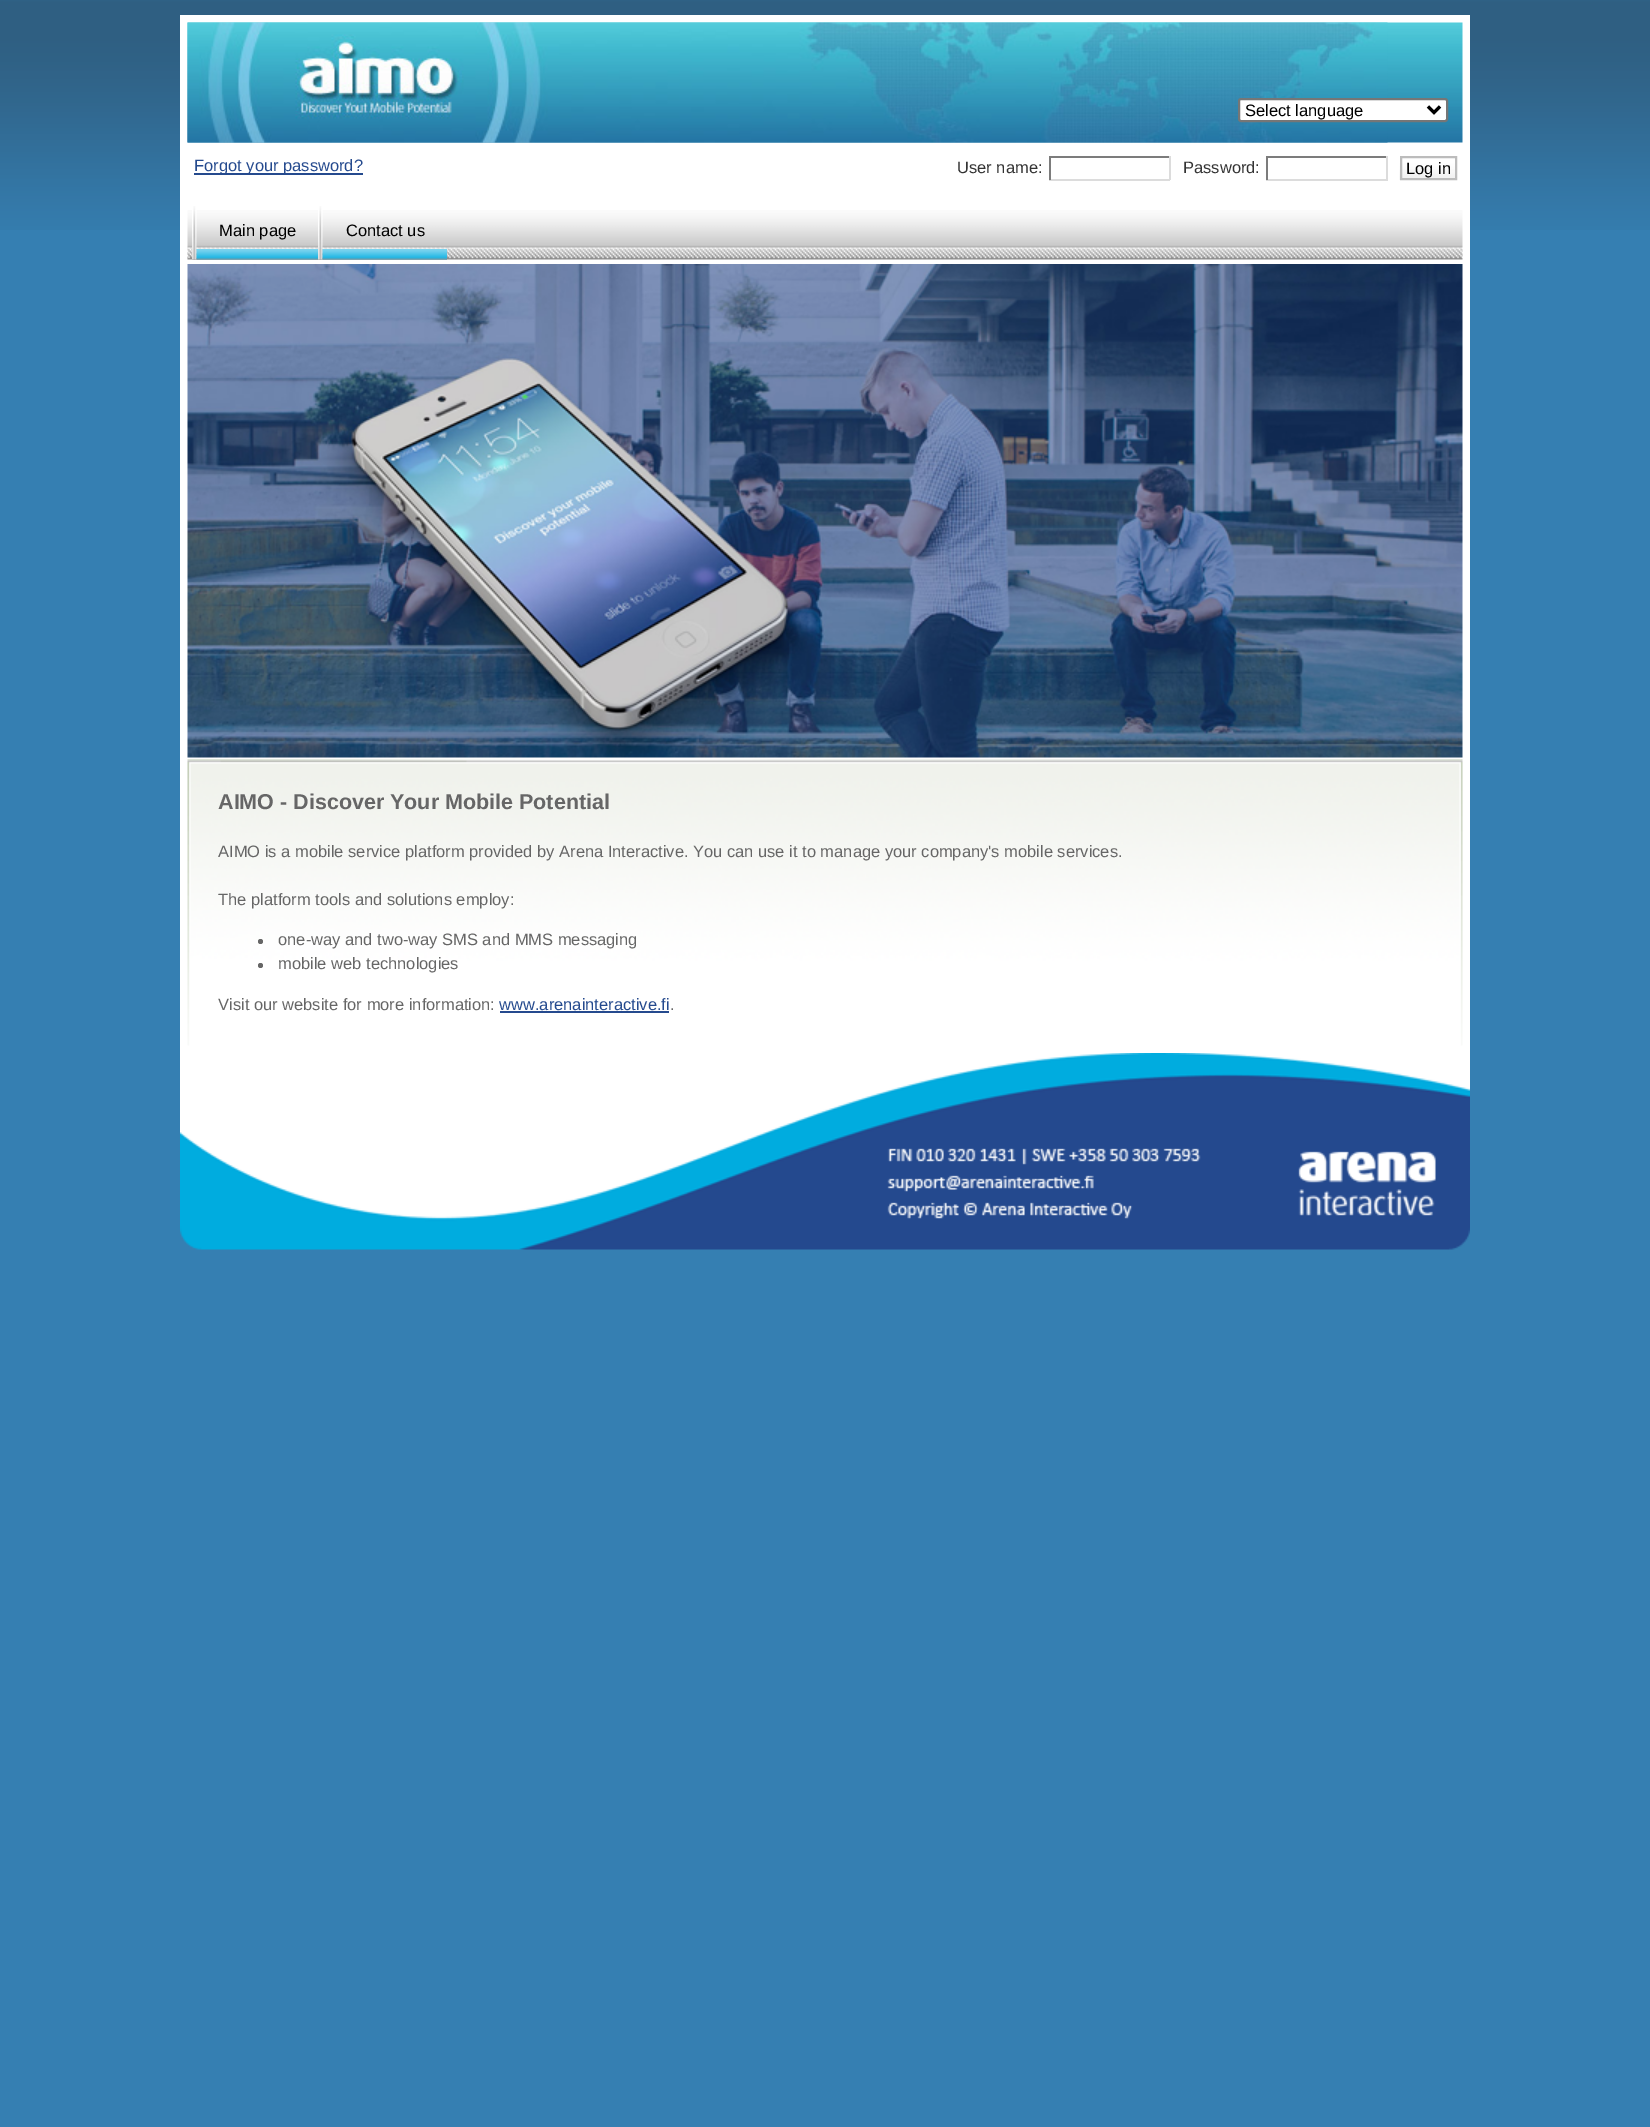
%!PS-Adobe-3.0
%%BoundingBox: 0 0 1650 2127
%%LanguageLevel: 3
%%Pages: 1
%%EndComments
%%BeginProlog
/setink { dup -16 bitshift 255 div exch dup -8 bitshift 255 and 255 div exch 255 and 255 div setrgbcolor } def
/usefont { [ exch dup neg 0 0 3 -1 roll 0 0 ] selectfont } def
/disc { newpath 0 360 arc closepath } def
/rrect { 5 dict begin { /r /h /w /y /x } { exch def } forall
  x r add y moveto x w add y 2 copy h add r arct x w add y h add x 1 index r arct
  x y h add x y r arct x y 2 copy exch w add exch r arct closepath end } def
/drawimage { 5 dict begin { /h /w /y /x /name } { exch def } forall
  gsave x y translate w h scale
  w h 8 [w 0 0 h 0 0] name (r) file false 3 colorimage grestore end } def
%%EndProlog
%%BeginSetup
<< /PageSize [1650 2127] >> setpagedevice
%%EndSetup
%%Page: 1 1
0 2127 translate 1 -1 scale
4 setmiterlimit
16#357FB2 setink
0 0 1650 2127 rectfill
(img1.raw) 0 0 1650 230 drawimage
16#FFFFFF setink
180 15 1290 1038 rectfill
(img2.raw) 187 22 1276 121 drawimage
(img3.raw) 187 22 1201 121 drawimage
1239 99 208 22 2 rrect gsave fill grestore
16#767676 setink
2 setlinewidth
stroke
16#000000 setink
3 setlinewidth
1428 106.5 moveto 1434 112.5 lineto 1440 106.5 lineto stroke
/LiberationSans-Regular 16.5 usefont
1245 116 moveto (Select language) show
(img4.raw) 187 210 1276 50 drawimage
16#254A8E setink
194 173 169 2 rectfill
194 171 moveto (Forgot your password?) show
16#333333 setink
957 173 moveto (User name:) show
[
    [1049 156 121 2 16#7C7C7C]
    [1169 156 2 24 16#DCDCDC]
    [1049 179 121 2 16#DCDCDC]
    [1049 156 2 24 16#7C7C7C]
] { aload pop setink rectfill } forall
16#333333 setink
1183 173 moveto (Password:) show
[
    [1266 156 122 2 16#7C7C7C]
    [1386 156 2 24 16#DCDCDC]
    [1266 179 122 2 16#DCDCDC]
    [1266 156 2 24 16#7C7C7C]
] { aload pop setink rectfill } forall
(img5.raw) 1399 157 56 23 drawimage
16#BCBCBC setink
2 setlinewidth
1401 157 55 22 rectstroke
16#000000 setink
1406 174 moveto (Log in) show
(img6.raw) 192 247 255 13 drawimage
(img7.raw) 192 206 5 54 drawimage
(img8.raw) 196 249 122 11 drawimage
219 236 moveto (Main page) show
(img9.raw) 318 206 5 54 drawimage
(img10.raw) 322 249 125 11 drawimage
346 236 moveto (Contact us) show
(img11.raw) 187 264 1276 494 drawimage
(img12.raw) 187 759 1276 287 drawimage
/LiberationSans-Bold 21.5 usefont
16#666666 setink
218 809 moveto (AIMO - Discover Your Mobile Potential) show
/LiberationSans-Regular 16.5 usefont
218 857 moveto (AIMO is a mobile service platform provided by Arena Interactive. You can use it to manage your company's mobile services.) show
218 905 moveto (The platform tools and solutions employ:) show
260.5 941.5 2.5 disc fill
278 945 moveto (one-way and two-way SMS and MMS messaging) show
260.5 965.5 2.5 disc fill
278 969 moveto (mobile web technologies) show
218 1010 moveto (Visit our website for more information:) show
16#254A8E setink
499 1010 moveto (www.arenainteractive.fi) show
500 1011 169 2 rectfill
16#666666 setink
670 1010 moveto (.) show
(img13.raw) 180 1053 1290 197 drawimage
showpage
%%EOF
